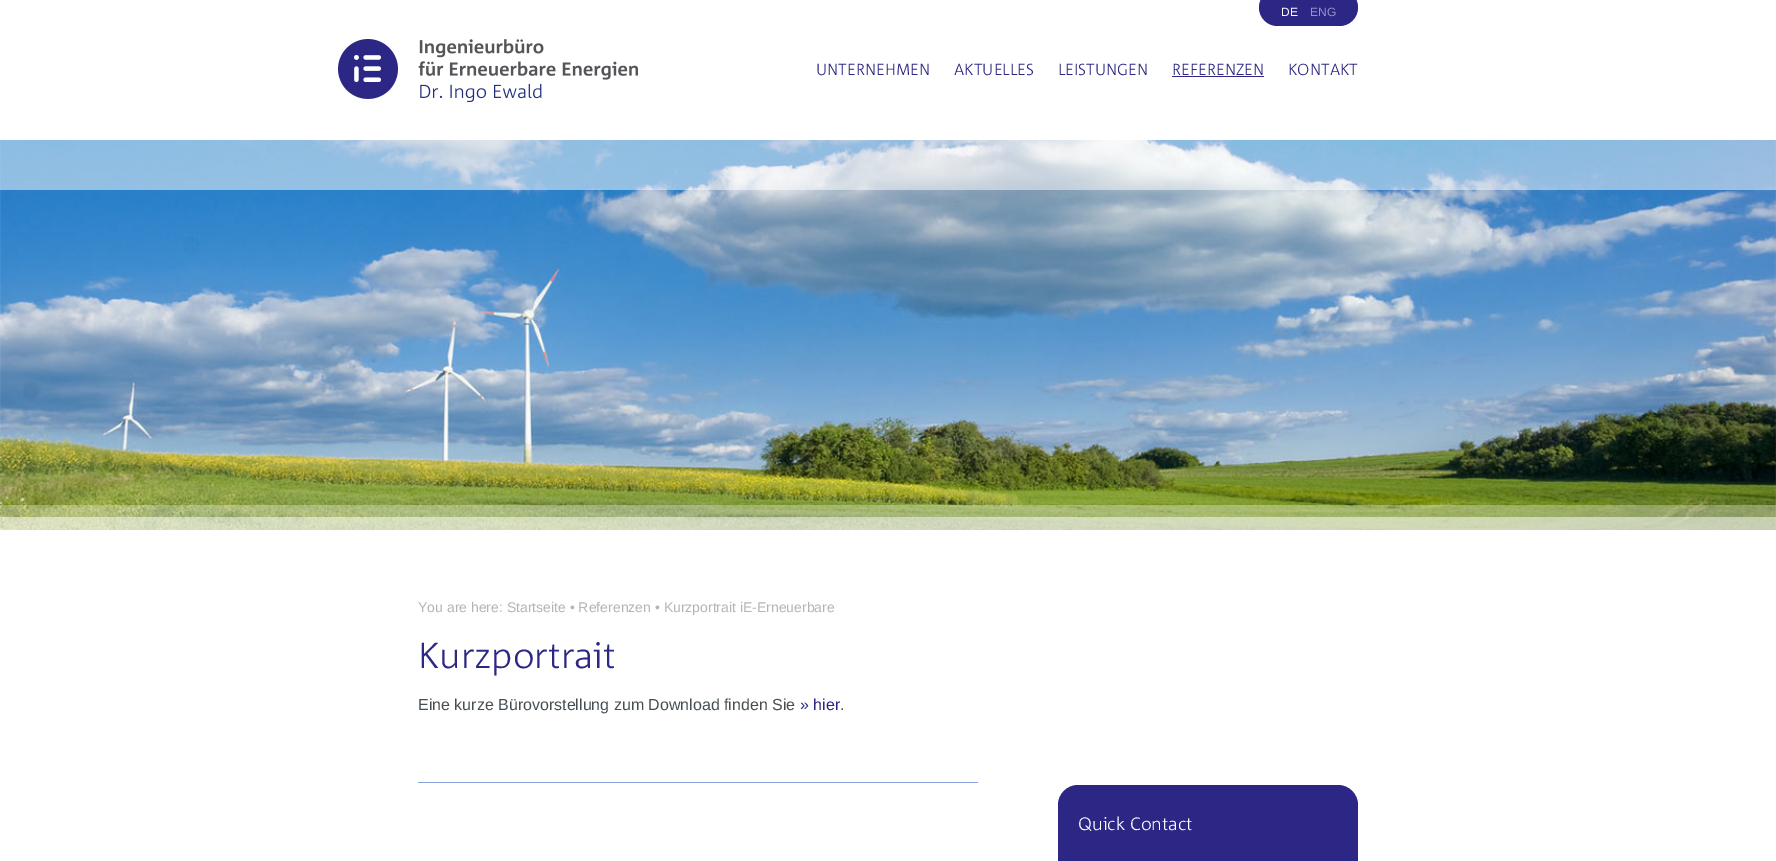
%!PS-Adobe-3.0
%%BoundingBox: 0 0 1776 861
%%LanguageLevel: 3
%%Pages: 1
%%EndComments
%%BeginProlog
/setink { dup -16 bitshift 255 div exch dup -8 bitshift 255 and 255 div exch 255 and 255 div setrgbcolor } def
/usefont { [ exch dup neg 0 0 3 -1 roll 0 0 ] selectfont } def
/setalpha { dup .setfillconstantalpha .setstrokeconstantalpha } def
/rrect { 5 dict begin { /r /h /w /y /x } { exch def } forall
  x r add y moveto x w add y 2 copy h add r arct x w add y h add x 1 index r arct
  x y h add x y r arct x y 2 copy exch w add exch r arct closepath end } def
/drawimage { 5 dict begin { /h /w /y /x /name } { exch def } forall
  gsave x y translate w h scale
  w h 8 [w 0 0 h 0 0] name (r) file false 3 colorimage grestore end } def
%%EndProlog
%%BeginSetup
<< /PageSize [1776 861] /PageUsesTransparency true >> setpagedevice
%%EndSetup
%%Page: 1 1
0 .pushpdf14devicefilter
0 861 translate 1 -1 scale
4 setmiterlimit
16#FFFFFF setink
0 0 1776 861 rectfill
16#2C2684 setink
1259 -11 99 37 18.5 rrect fill
/LiberationSans-Regular 12 usefont
16#FFFFFF setink
1281 16 moveto (DE) show
16#9693C2 setink
1310 16 moveto (ENG) show
(img1.raw) 338 39 300 63 drawimage
/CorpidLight-Light 16 usefont
16#2C2684 setink
[
    [(UNTERNEHMEN) 816 75]
    [(AKTUELLES) 954 75]
    [(LEISTUNGEN) 1058 75]
    [(REFERENZEN) 1172 75]
] { aload pop moveto show } forall
1172 76 92 1 rectfill
1288 75 moveto (KONTAKT) show
(img2.raw) 0 140 1776 390 drawimage
0.5 setalpha
[
    [0 140 1776 50 16#FFFFFF]
] { aload pop setink rectfill } forall
0.3 setalpha
[
    [0 505 1776 25 16#FFFFFF]
] { aload pop setink rectfill } forall
0.5 setalpha
[
    [0 517 1776 13 16#FFFFFF]
] { aload pop setink rectfill } forall
/LiberationSans-Regular 14 usefont
1 setalpha
16#B2B4B6 setink
418 612 moveto (You are here: Startseite • Referenzen • Kurzportrait iE-Erneuerbare) show
/CorpidLight-Light 36 usefont
16#2C2684 setink
418 668 moveto (Kurzportrait) show
/LiberationSans-Regular 16 usefont
16#464E53 setink
418 710 moveto (Eine kurze Bürovorstellung zum Download finden Sie) show
16#2C2684 setink
800 710 moveto (» hier) show
16#464E53 setink
840 710 moveto (.) show
16#8CA2DC setink
418 782 560 1 rectfill
16#2C2684 setink
1078 785 moveto 1338 785 lineto 1349 785 1358 794 1358 805 curveto 1358 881 lineto 1058 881 lineto 1058 805 lineto 1058 794 1067 785 1078 785 curveto closepath fill
/CorpidLight-Light 18 usefont
16#FFFFFF setink
1078 830 moveto (Quick Contact) show
.poppdf14devicefilter showpage
%%EOF
